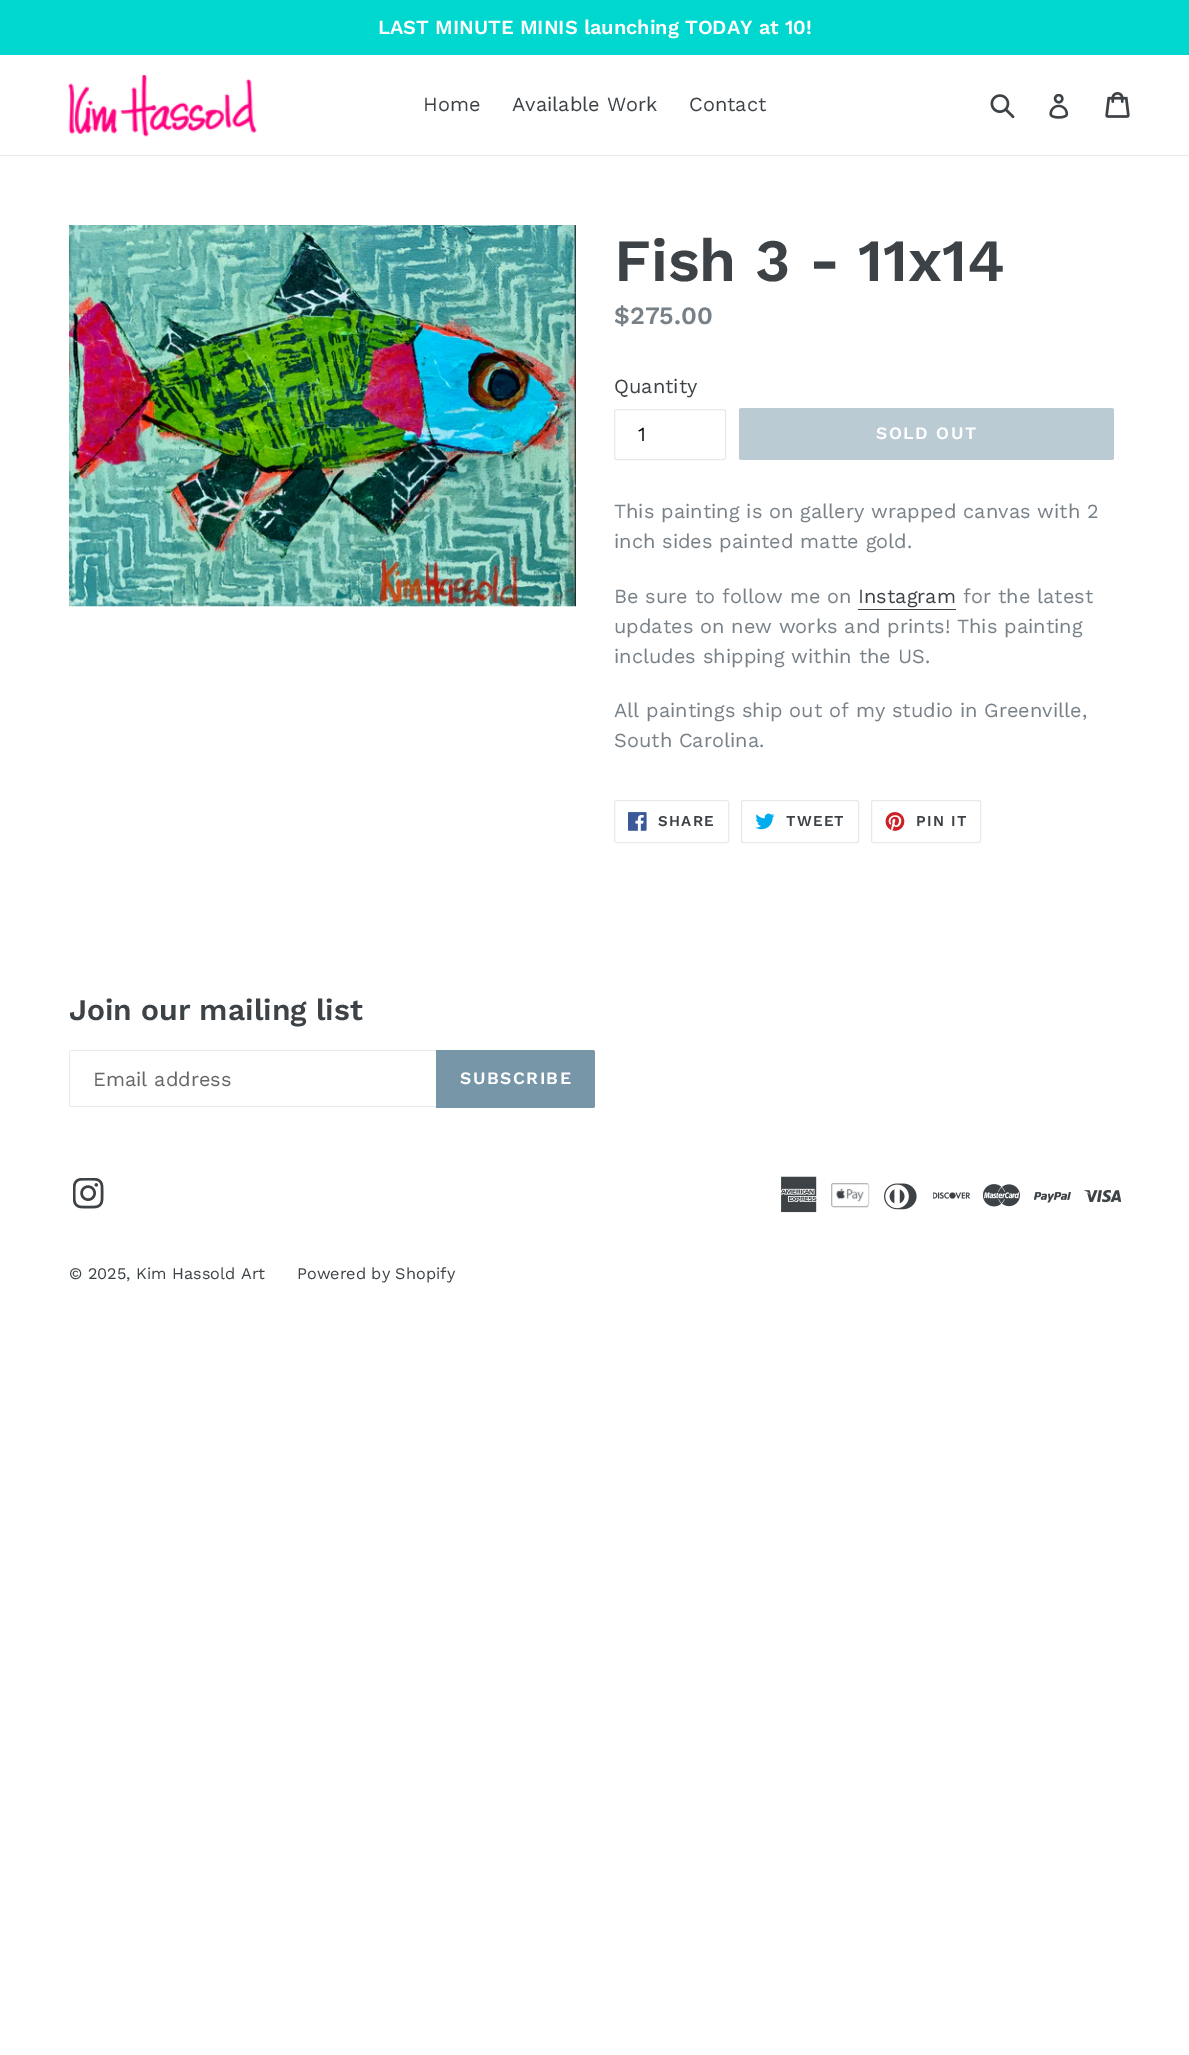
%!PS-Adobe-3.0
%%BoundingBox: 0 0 1189 2055
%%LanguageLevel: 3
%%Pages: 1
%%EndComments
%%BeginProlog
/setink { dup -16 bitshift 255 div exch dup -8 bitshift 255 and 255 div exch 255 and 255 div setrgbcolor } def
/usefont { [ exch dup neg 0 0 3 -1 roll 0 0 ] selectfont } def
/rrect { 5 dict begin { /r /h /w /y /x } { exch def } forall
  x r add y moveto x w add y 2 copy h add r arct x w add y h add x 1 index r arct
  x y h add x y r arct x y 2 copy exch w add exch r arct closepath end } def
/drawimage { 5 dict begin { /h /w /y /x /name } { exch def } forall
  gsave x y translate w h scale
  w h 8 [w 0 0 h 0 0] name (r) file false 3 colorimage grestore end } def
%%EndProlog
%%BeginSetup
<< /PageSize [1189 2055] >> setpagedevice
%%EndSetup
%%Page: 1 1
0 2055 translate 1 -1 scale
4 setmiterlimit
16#FFFFFF setink
0 0 1189 2055 rectfill
16#00D7CF setink
0 0 1189 55 rectfill
/WorkSans-SemiBold 20 usefont
16#FFFFFF setink
378 34 moveto (LAST MINUTE MINIS launching TODAY at 10!) show
16#E8E9EB setink
0 155 1189 1 rectfill
(img1.raw) 68 75 189 62 drawimage
/WorkSans-Regular 20 usefont
16#3D4246 setink
[
    [(Home) 423 111]
    [(Available Work) 512 111]
    [(Contact) 689 111]
] { aload pop moveto show } forall
(img2.raw) 990 94 25 25 drawimage
(img3.raw) 1049 94 20 25 drawimage
(img4.raw) 1105 92 25 26 drawimage
(img5.raw) 69 225 507 382 drawimage
/WorkSans-SemiBold 60 usefont
614 281 moveto (Fish 3 - 11x14) show
/WorkSans-SemiBold 25 usefont
16#788188 setink
614 324 moveto ($275.00) show
/WorkSans-Regular 20 usefont
16#3D4246 setink
614 393 moveto (Quantity) show
16#E8E9EB setink
614.5 409.5 111 50 2 rrect stroke
16#000000 setink
638 441 moveto (1) show
16#BBCBD4 setink
739 408 375 52 2.5 rrect fill
/WorkSans-SemiBold 17.5 usefont
16#FFFFFF setink
876 439 moveto 1.5 0 (SOLD OUT) ashow
/WorkSans-Regular 20 usefont
16#788188 setink
[
    [(This painting is on gallery wrapped canvas with 2) 614 518]
    [(inch sides painted matte gold.) 614 548]
    [(Be sure to follow me on) 614 603]
] { aload pop moveto show } forall
16#3D4246 setink
858 603 moveto (Instagram) show
858 609 98 1 rectfill
16#788188 setink
[
    [(for the latest) 963 603]
    [(updates on new works and prints! This painting) 614 633]
    [(includes shipping within the US.) 614 663]
    [(All paintings ship out of my studio in Greenville,) 614 717]
    [(South Carolina.) 614 747]
] { aload pop moveto show } forall
16#E8E9EB setink
614.5 800.5 114 42 2 rrect stroke
(img6.raw) 628 812 19 19 drawimage
/WorkSans-SemiBold 15 usefont
16#3D4246 setink
658 826 moveto 1.25 0 (SHARE) ashow
16#E8E9EB setink
741.5 800.5 117 42 2 rrect stroke
(img7.raw) 755 813 20 17 drawimage
16#3D4246 setink
786 826 moveto 1.25 0 (TWEET) ashow
16#E8E9EB setink
871.5 800.5 109 42 2 rrect stroke
(img8.raw) 885 812 20 19 drawimage
16#3D4246 setink
916 826 moveto 1.25 0 (PIN IT) ashow
/WorkSans-SemiBold 30 usefont
69 1020 moveto (Join our mailing list) show
[
    [70 1050 366 1 16#E8E9EB]
    [70 1106 366 1 16#E8E9EB]
    [69 1051 1 55 16#E8E9EB]
] { aload pop setink rectfill } forall
/WorkSans-Regular 20 usefont
16#666666 setink
93 1086 moveto (Email address) show
16#7796A8 setink
436 1050 moveto 592.5 1050 lineto 594 1050 595 1051 595 1052.5 curveto 595 1105.5 lineto 595 1107 594 1108 592.5 1108 curveto 436 1108 lineto closepath fill
/WorkSans-SemiBold 17.5 usefont
16#FFFFFF setink
460 1084 moveto 1.5 0 (SUBSCRIBE) ashow
(img9.raw) 73 1178 31 31 drawimage
(img10.raw) 781 1176 36 37 drawimage
(img11.raw) 831 1183 39 25 drawimage
(img12.raw) 884 1183 33 27 drawimage
(img13.raw) 933 1192 37 7 drawimage
(img14.raw) 983 1184 37 23 drawimage
(img15.raw) 1034 1192 37 11 drawimage
(img16.raw) 1084 1190 37 13 drawimage
/WorkSans-Regular 16.25 usefont
16#3D4246 setink
69 1279 moveto (© 2025, Kim Hassold Art) show
297 1279 moveto (Powered by Shopify) show
showpage
%%EOF
